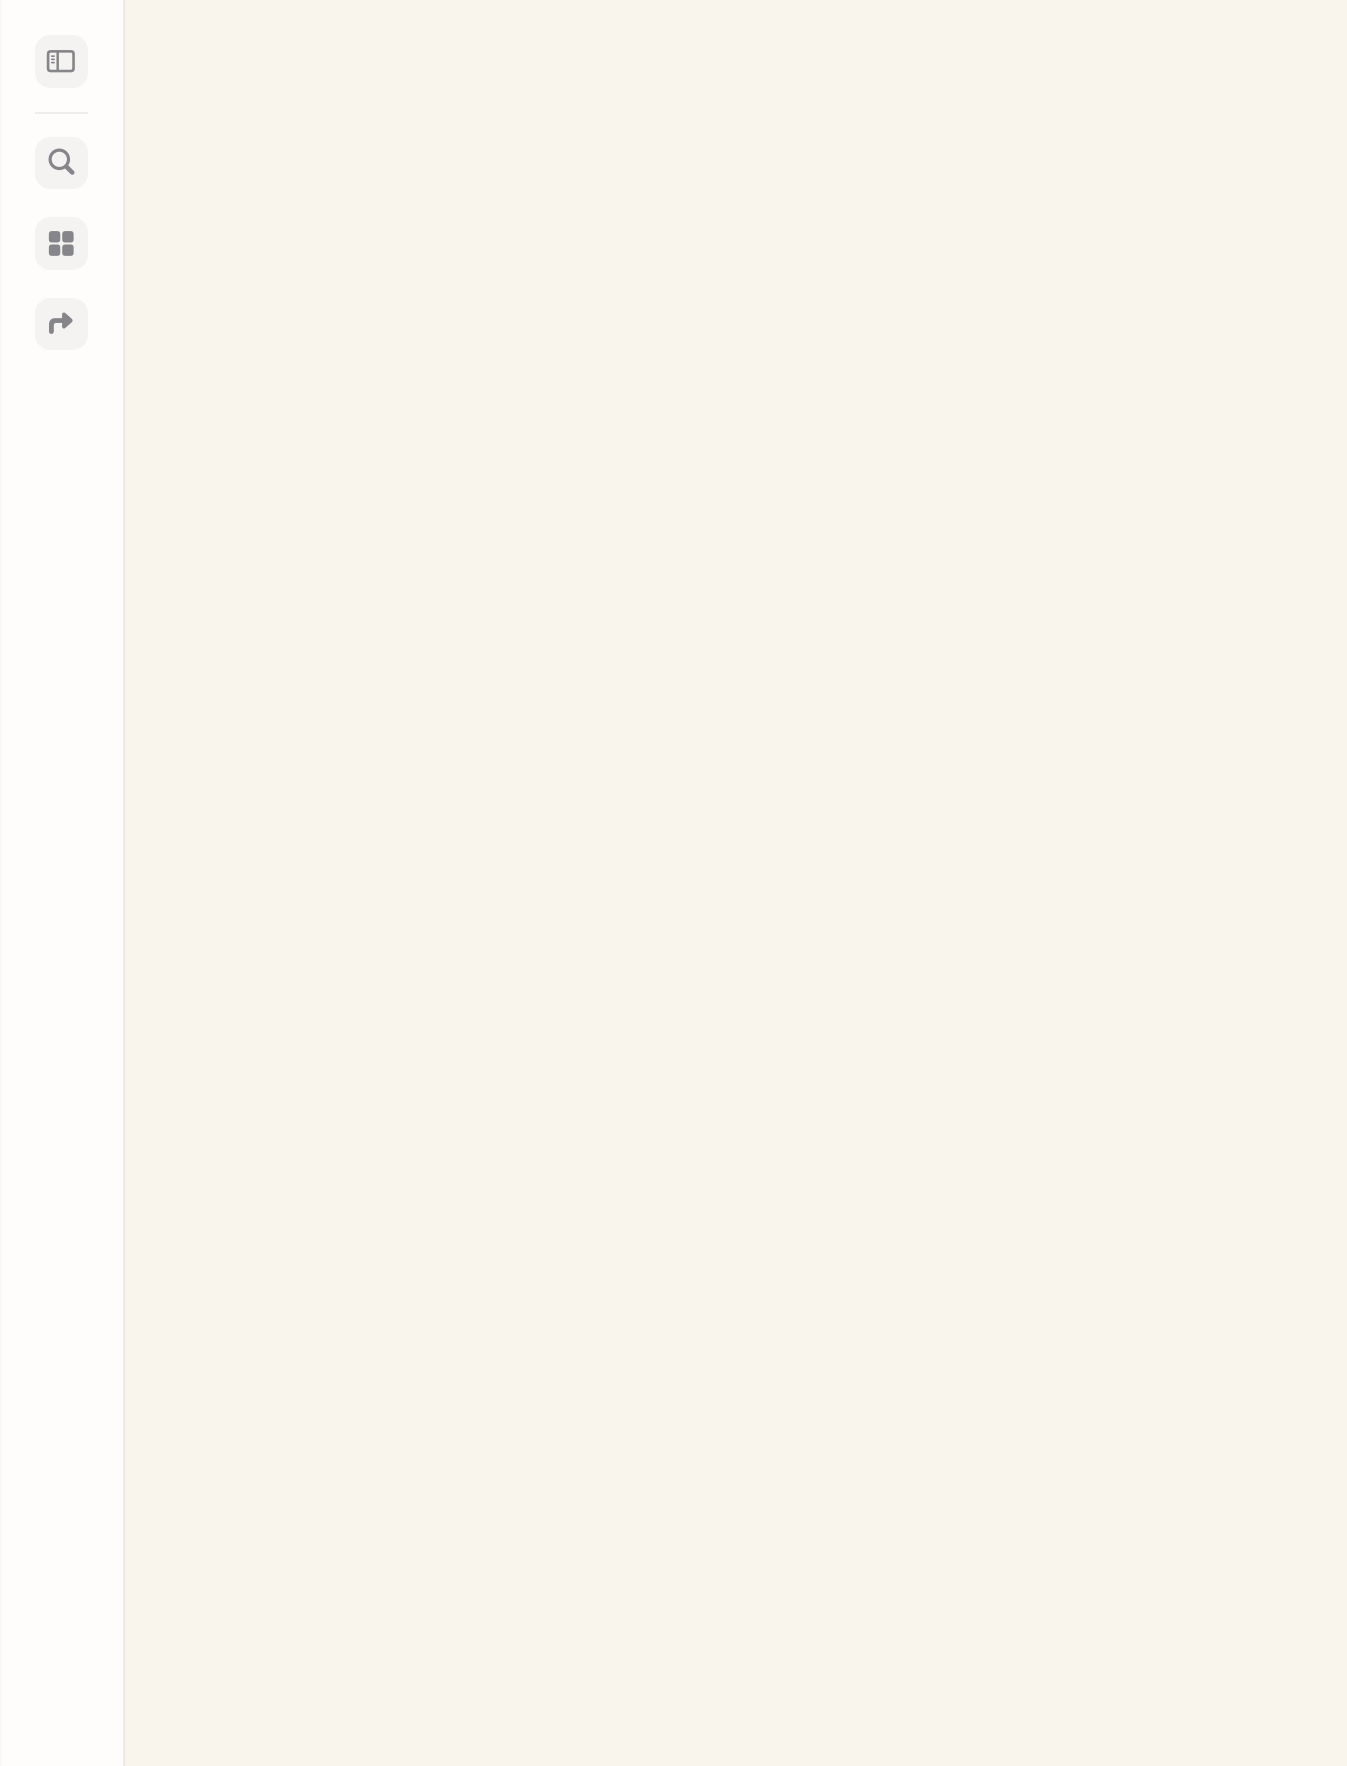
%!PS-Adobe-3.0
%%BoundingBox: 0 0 1347 1766
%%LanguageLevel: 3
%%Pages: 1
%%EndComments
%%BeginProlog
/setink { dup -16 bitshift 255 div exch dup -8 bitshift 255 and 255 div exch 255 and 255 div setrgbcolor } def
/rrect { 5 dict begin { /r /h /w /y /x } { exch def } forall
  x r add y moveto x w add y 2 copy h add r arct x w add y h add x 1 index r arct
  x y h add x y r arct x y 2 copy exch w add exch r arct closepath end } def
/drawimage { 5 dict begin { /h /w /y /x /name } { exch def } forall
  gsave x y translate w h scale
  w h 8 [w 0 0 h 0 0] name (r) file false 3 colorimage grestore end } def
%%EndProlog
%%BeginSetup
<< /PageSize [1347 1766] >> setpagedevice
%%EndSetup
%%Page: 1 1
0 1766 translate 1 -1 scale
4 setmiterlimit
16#F9F9F9 setink
0 0 1347 1766 rectfill
[
    [125 0 1222 1766 16#F9F5ED]
    [124 0 1 1766 16#E9E6E0]
    [2 0 121 1766 16#FEFDFB]
    [123 0 1 1766 16#EEEDEC]
    [35 112 53 2 16#EEEDED]
] { aload pop setink rectfill } forall
16#F4F3F1 setink
35 35 53 53 16 rrect fill
(img1.raw) 46 50 29 23 drawimage
35 137 53 52 16 rrect fill
(img2.raw) 48 148 27 27 drawimage
35 217 53 53 16 rrect fill
(img3.raw) 48 231 26 25 drawimage
35 298 53 52 16 rrect fill
(img4.raw) 49 312 24 22 drawimage
showpage
%%EOF
